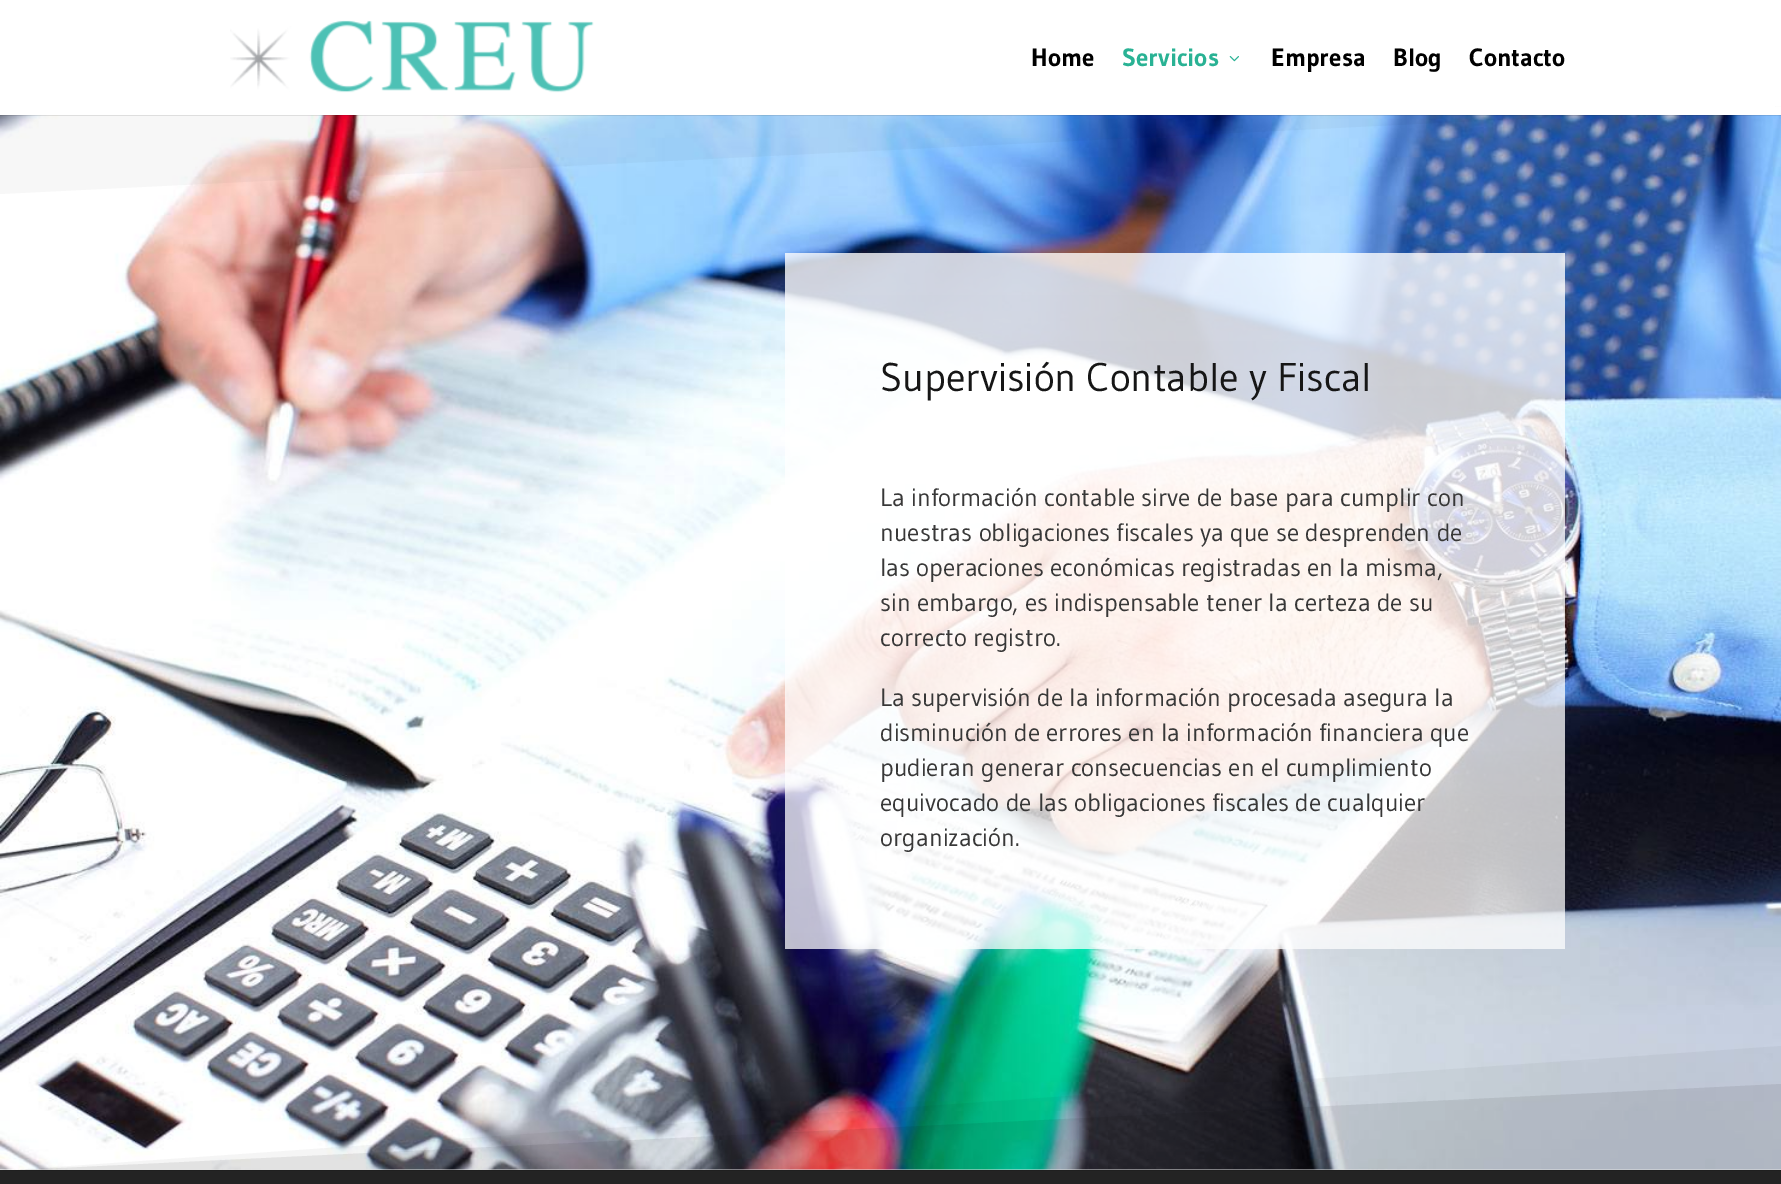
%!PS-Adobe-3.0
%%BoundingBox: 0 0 1781 1184
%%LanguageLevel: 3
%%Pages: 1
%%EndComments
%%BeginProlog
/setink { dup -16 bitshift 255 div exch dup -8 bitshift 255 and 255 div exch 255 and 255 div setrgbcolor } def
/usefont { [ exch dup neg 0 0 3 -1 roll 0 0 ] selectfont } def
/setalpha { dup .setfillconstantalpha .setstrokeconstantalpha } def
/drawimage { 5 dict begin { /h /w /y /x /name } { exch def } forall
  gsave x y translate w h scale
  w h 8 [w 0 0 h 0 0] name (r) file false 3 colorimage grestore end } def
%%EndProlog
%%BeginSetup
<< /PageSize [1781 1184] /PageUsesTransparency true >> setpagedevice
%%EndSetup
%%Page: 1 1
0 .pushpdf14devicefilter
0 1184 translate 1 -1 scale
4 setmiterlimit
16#FFFFFF setink
0 0 1781 1184 rectfill
(img3.raw) 0 115 1781 1055 drawimage
0.03 setalpha
16#000000 setink
0 194 moveto 0 106 lineto 1781 106 lineto closepath fill
0.1 setalpha
0 115 1781 1 rectfill
1 setalpha
16#FFFFFF setink
0 106 1775 9 rectfill
(img1.raw) 230 20 364 73 drawimage
/Gudea-Bold 25 usefont
16#000000 setink
1031 66 moveto (Home) show
16#29B294 setink
1122 66 moveto (Servicios) show
(img2.raw) 1229 56 10 6 drawimage
16#000000 setink
[
    [(Empresa) 1271 66]
    [(Blog) 1393 66]
    [(Contacto) 1469 66]
] { aload pop moveto show } forall
/Gudea-Regular 40 usefont
16#161616 setink
880 391 moveto (Supervisión Contable y Fiscal) show
/Gudea-Regular 25 usefont
16#383838 setink
[
    [(La información contable sirve de base para cumplir con) 880 506]
    [(nuestras obligaciones fiscales ya que se desprenden de) 880 541]
    [(las operaciones económicas registradas en la misma,) 880 576]
    [(sin embargo, es indispensable tener la certeza de su) 880 611]
    [(correcto registro.) 880 646]
    [(La supervisión de la información procesada asegura la) 880 706]
    [(disminución de errores en la información financiera que) 880 741]
    [(pudieran generar consecuencias en el cumplimiento) 880 776]
    [(equivocado de las obligaciones fiscales de cualquier) 880 811]
    [(organización.) 880 846]
] { aload pop moveto show } forall
16#232323 setink
0 1170 1781 14 rectfill
0.04 setalpha
16#000000 setink
1781 1046 moveto 1781 1171 lineto 0 1171 lineto closepath fill
0.08 setalpha
1781 1084 moveto 1781 1171 lineto 0 1171 lineto closepath fill
.poppdf14devicefilter showpage
%%EOF
